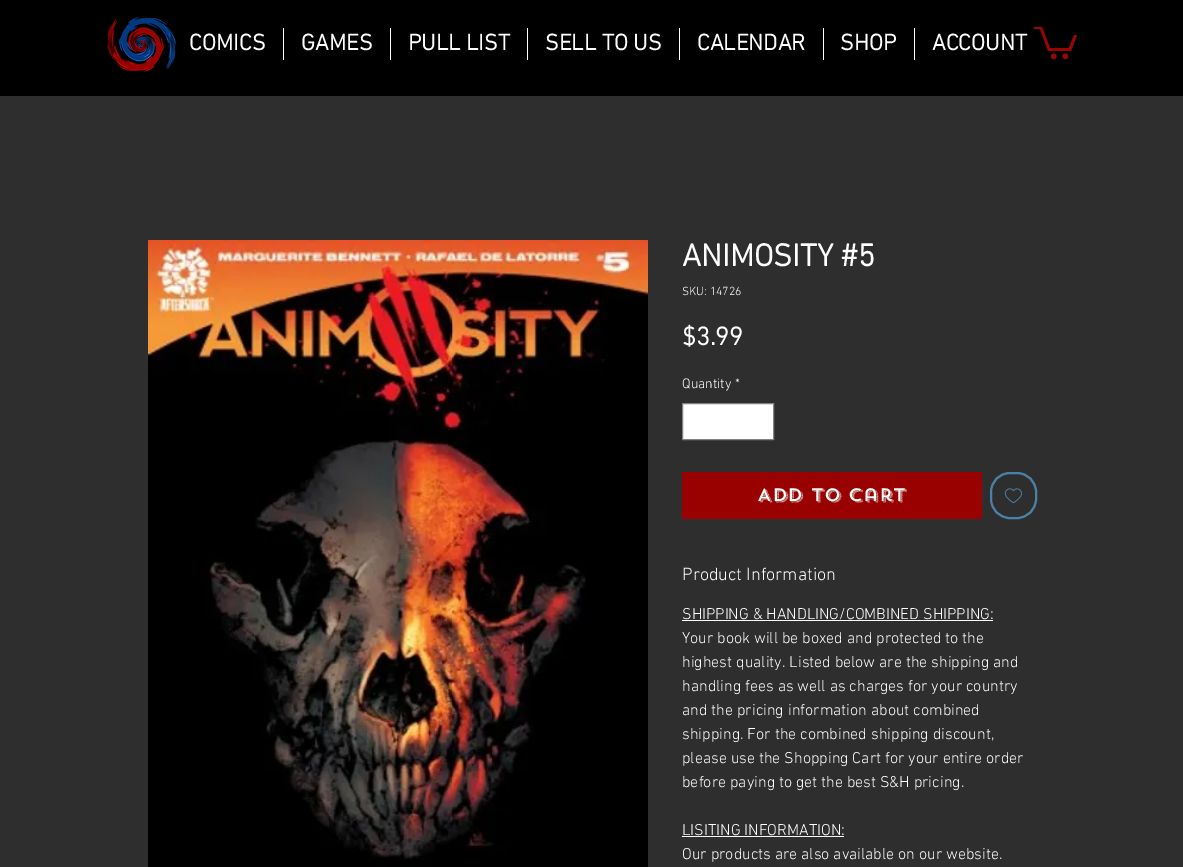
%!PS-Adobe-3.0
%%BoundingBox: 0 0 1183 867
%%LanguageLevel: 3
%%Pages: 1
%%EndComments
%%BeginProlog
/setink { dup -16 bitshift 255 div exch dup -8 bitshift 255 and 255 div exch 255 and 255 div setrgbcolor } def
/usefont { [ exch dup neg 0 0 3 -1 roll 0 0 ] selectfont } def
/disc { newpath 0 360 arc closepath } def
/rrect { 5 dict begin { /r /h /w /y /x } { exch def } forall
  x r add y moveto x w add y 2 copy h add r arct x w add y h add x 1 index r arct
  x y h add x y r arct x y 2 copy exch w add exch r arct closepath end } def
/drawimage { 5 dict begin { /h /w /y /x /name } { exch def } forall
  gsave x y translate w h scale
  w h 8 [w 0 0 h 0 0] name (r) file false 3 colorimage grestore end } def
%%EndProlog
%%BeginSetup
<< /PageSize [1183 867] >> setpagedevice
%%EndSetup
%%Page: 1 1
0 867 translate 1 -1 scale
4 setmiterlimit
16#2F2E2E setink
0 0 1183 867 rectfill
16#000000 setink
0 0 1183 96 rectfill
(img1.raw) 107 16 70 56 drawimage
/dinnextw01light-Bold 23 usefont
16#FFFFFF setink
189 50 moveto (COMICS) show
283 28 1 32 rectfill
301 50 moveto (GAMES) show
390 28 1 32 rectfill
408 50 moveto (PULL LIST) show
527 28 1 32 rectfill
545 50 moveto (SELL TO US) show
679 28 1 32 rectfill
697 50 moveto (CALENDAR) show
823 28 1 32 rectfill
840 50 moveto (SHOP) show
914 28 1 32 rectfill
932 50 moveto (ACCOUNT) show
16#990505 setink
1077 35 moveto 1071 51 lineto 1048 51 lineto 1040 29 lineto 1034 29 lineto 1034 27 lineto 1042 27 lineto 1050 48 lineto 1069 48 lineto 1074 35 lineto fill
1065.3 56.3 2.8 disc fill
1053.7 56.3 2.8 disc fill
(img2.raw) 148 240 500 627 drawimage
/dinnextw01light-Bold 32 usefont
16#FFFFFF setink
682 266 moveto (ANIMOSITY #5) show
/dinnextw01light-Light 12 usefont
682 295 moveto (SKU: 14726) show
/dinnextw01light-Bold 26 usefont
682 345 moveto ($3.99) show
/dinnextw01light-Light 14 usefont
682 388 moveto (Quantity) show
735 388 moveto (*) show
682.5 403.5 moveto 773.5 403.5 lineto 773.5 439.5 lineto 682.5 439.5 lineto closepath gsave fill grestore
16#828282 setink
stroke
16#990000 setink
682 472 300 47 rectfill
/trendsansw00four-Medium 18 usefont
16#FFFFFF setink
757 501 moveto (Add to Cart) show
16#4B81A7 setink
2 setlinewidth
991 473 45 45 19 rrect stroke
(img3.raw) 1004 488 18 16 drawimage
/dinnextw01light-Light 18 usefont
16#FFFFFF setink
682 580 moveto (Product Information) show
/dinnextw01light-Light 16 usefont
682 619 moveto (SHIPPING & HANDLING/COMBINED SHIPPING:) show
682 620 311 1 rectfill
[
    [(Your book will be boxed and protected to the) 682 643]
    [(highest quality. Listed below are the shipping and) 682 667]
    [(handling fees as well as charges for your country) 682 691]
    [(and the pricing information about combined) 682 715]
    [(shipping. For the combined shipping discount,) 682 739]
    [(please use the Shopping Cart for your entire order) 682 763]
    [(before paying to get the best S&H pricing.) 682 787]
    [(LISITING INFORMATION:) 682 835]
] { aload pop moveto show } forall
682 836 162 1 rectfill
682 859 moveto (Our products are also available on our website.) show
showpage
%%EOF
